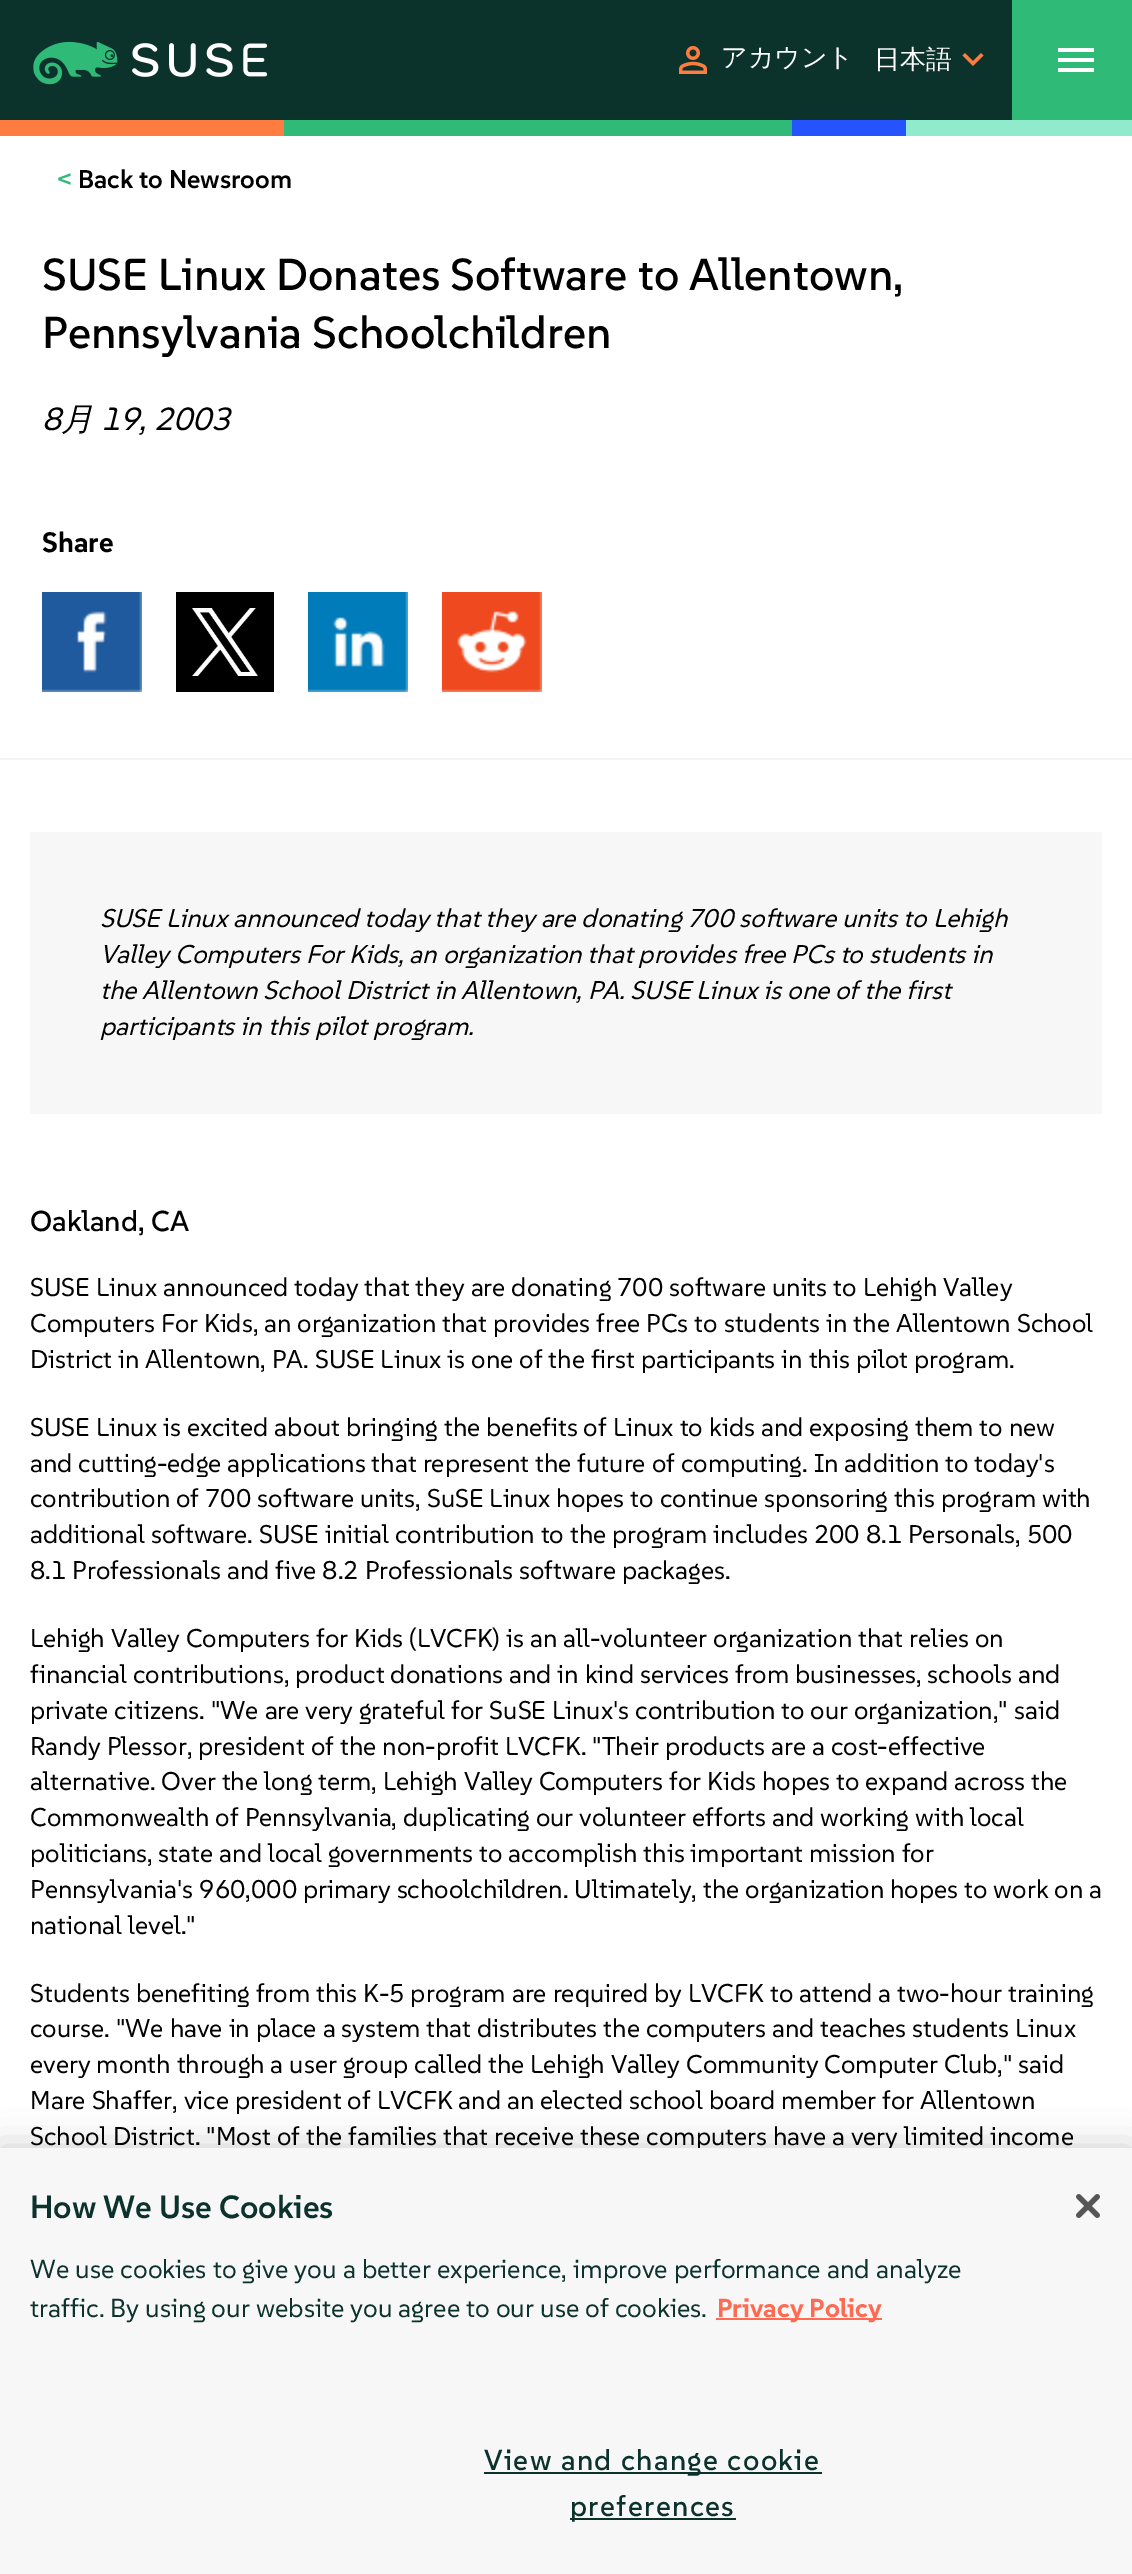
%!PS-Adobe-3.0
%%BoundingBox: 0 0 1132 2574
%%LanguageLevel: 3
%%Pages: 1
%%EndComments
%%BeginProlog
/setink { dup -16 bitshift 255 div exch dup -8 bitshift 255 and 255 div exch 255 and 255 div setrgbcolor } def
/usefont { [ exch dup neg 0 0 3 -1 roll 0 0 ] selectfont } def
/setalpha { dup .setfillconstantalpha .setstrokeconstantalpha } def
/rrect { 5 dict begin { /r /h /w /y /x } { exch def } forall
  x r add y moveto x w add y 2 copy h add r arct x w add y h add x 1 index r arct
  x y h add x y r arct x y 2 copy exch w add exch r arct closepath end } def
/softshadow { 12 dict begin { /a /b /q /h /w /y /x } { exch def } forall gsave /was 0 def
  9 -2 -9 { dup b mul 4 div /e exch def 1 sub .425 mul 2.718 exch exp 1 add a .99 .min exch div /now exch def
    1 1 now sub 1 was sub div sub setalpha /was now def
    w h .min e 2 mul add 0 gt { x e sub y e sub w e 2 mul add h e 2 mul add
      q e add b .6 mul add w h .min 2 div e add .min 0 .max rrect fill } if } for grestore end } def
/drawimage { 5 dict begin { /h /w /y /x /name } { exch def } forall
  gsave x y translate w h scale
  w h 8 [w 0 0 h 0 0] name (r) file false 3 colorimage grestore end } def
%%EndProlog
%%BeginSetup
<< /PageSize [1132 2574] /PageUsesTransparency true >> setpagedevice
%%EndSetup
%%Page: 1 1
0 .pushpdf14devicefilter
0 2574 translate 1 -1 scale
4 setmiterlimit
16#FFFFFF setink
0 0 1132 2574 rectfill
16#0C322C setink
0 0 1012 120 rectfill
(img1.raw) 33 41 235 44 drawimage
(img2.raw) 679 46 28 28 drawimage
/WenQuanYiZenHei-Medium 26 usefont
16#FFFFFF setink
721 66 moveto (アカウント) show
874 68 moveto (日本語) show
16#FE7C3F setink
973 66 moveto 962.5 55.5 lineto 965 53 lineto 973 61 lineto 981 53 lineto 983.5 55.5 lineto closepath fill
16#30BA78 setink
1012 0 120 120 rectfill
16#FFFFFF setink
1058 72 moveto 1058 68 lineto 1094 68 lineto 1094 72 lineto closepath 1058 62 moveto 1058 58 lineto 1094 58 lineto 1094 62 lineto closepath 1058 52 moveto 1058 48 lineto 1094 48 lineto 1094 52 lineto closepath fill
[
    [0 120 284 16 16#FE7C3F]
    [284 120 508 16 16#30BA78]
    [792 120 114 16 16#2453FF]
    [906 120 226 16 16#90EBCD]
] { aload pop setink rectfill } forall
/SUSE-SemiBold 25.6 usefont
16#30BA78 setink
57 188 moveto (<) show
16#000000 setink
78 188 moveto (Back to Newsroom) show
/SUSE-Medium 44.75 usefont
42 290 moveto (SUSE Linux Donates Software to Allentown,) show
42 348 moveto (Pennsylvania Schoolchildren) show
/SUSE-Italic 32 usefont
42 430 moveto (8) show
/WenQuanYiZenHei-MediumItalic 32 usefont
61 430 moveto (月) show
/SUSE-Italic 32 usefont
101 430 moveto (19, 2003) show
/SUSE-Bold 28 usefont
42 552 moveto (Share) show
(img3.raw) 42 592 100 100 drawimage
176 592 98 100 rectfill
(img4.raw) 192 608 66 68 drawimage
(img5.raw) 308 592 100 100 drawimage
(img6.raw) 442 592 100 100 drawimage
16#F4F4F4 setink
0 758 1132 2 rectfill
16#F7F7F7 setink
30 832 1072 282 rectfill
/SUSE-Italic 25.6 usefont
16#000000 setink
[
    [(SUSE Linux announced today that they are donating 700 software units to Lehigh) 100 927]
    [(Valley Computers For Kids, an organization that provides free PCs to students in) 100 963]
    [(the Allentown School District in Allentown, PA. SUSE Linux is one of the first) 100 999]
    [(participants in this pilot program.) 100 1035]
] { aload pop moveto show } forall
/SUSE-Medium 28.75 usefont
30 1231 moveto (Oakland, CA) show
/SUSE-Regular 25.6 usefont
[
    [(SUSE Linux announced today that they are donating 700 software units to Lehigh Valley) 30 1296]
    [(Computers For Kids, an organization that provides free PCs to students in the Allentown School) 30 1332]
    [(District in Allentown, PA. SUSE Linux is one of the first participants in this pilot program.) 30 1368]
    [(SUSE Linux is excited about bringing the benefits of Linux to kids and exposing them to new) 30 1436]
    [(and cutting-edge applications that represent the future of computing. In addition to today's) 30 1472]
    [(contribution of 700 software units, SuSE Linux hopes to continue sponsoring this program with) 30 1507]
    [(additional software. SUSE initial contribution to the program includes 200 8.1 Personals, 500) 30 1543]
    [(8.1 Professionals and five 8.2 Professionals software packages.) 30 1579]
    [(Lehigh Valley Computers for Kids \(LVCFK\) is an all-volunteer organization that relies on) 30 1647]
    [(financial contributions, product donations and in kind services from businesses, schools and) 30 1683]
    [(private citizens. "We are very grateful for SuSE Linux's contribution to our organization," said) 30 1719]
    [(Randy Plessor, president of the non-profit LVCFK. "Their products are a cost-effective) 30 1755]
    [(alternative. Over the long term, Lehigh Valley Computers for Kids hopes to expand across the) 30 1790]
    [(Commonwealth of Pennsylvania, duplicating our volunteer efforts and working with local) 30 1826]
    [(politicians, state and local governments to accomplish this important mission for) 30 1862]
    [(Pennsylvania's 960,000 primary schoolchildren. Ultimately, the organization hopes to work on a) 30 1898]
    [(national level.") 30 1934]
    [(Students benefiting from this K-5 program are required by LVCFK to attend a two-hour training) 30 2002]
    [(course. "We have in place a system that distributes the computers and teaches students Linux) 30 2037]
    [(every month through a user group called the Lehigh Valley Community Computer Club," said) 30 2073]
    [(Mare Shaffer, vice president of LVCFK and an elected school board member for Allentown) 30 2109]
    [(School District. "Most of the families that receive these computers have a very limited income) 30 2145]
] { aload pop moveto show } forall
0 2148 1132 426 0 18 0.2 softshadow
16#F7F7F7 setink
0 2148 1132 426 rectfill
/SUSE-SemiBold 32 usefont
16#0C322C setink
30 2218 moveto (How We Use Cookies) show
/SUSE-Regular 26 usefont
30 2278 moveto (We use cookies to give you a better experience, improve performance and analyze) show
30 2317 moveto (traffic. By using our website you agree to our use of cookies.) show
16#FF6A52 setink
716 2318 166 2 rectfill
/SUSE-Bold 26 usefont
717 2317 moveto (Privacy Policy) show
16#0C322C setink
484 2472 338 2 rectfill
/SUSE-Medium 28.75 usefont
484 2470 moveto 1.4 0 (View and change cookie) ashow
570 2518 166 2 rectfill
570 2516 moveto 1.4 0 (preferences) ashow
(img7.raw) 1076 2194 24 24 drawimage
.poppdf14devicefilter showpage
%%EOF
